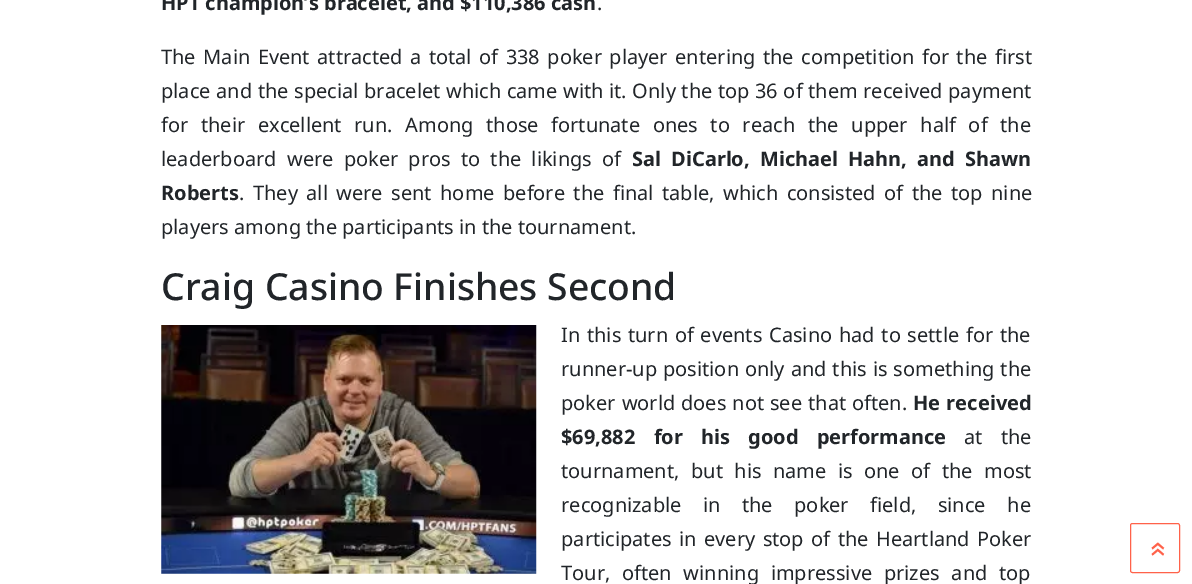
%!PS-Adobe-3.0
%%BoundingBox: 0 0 1192 584
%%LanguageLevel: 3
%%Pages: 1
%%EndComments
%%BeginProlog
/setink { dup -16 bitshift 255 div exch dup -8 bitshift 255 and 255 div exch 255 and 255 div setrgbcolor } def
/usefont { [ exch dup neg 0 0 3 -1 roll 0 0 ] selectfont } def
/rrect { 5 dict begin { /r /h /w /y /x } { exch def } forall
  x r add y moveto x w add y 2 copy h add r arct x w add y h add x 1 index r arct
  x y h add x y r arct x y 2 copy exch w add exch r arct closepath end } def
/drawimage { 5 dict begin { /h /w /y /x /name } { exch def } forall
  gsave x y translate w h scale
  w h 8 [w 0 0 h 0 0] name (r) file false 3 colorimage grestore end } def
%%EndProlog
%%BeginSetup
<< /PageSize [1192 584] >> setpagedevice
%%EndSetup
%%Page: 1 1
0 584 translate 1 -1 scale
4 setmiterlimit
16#FFFFFF setink
0 0 1192 584 rectfill
/NotoSans-Bold 20 usefont
16#212529 setink
161 10 moveto (HPT champion’s bracelet, and $110,386 cash) show
/NotoSans-Regular 20 usefont
597 10 moveto (.) show
161 64 moveto 2.25 0 32 (The Main Event attracted a total of 338 poker player entering the competition for the first) widthshow
161 98 moveto 0.4 0 32 (place and the special bracelet which came with it. Only the top 36 of them received payment) widthshow
161 132 moveto 7.4 0 32 (for their excellent run. Among those fortunate ones to reach the upper half of the) widthshow
161 166 moveto 5 0 32 (leaderboard were poker pros to the likings of) widthshow
/NotoSans-Bold 20 usefont
632 166 moveto 5 0 32 (Sal DiCarlo, Michael Hahn, and Shawn) widthshow
161 200 moveto (Roberts) show
/NotoSans-Regular 20 usefont
239 200 moveto 3.25 0 32 (. They all were sent home before the final table, which consisted of the top nine) widthshow
161 234 moveto (players among the participants in the tournament.) show
/NotoSans-Medium 37.25 usefont
161 300 moveto (Craig Casino Finishes Second) show
(img1.raw) 161 325 376 249 drawimage
/NotoSans-Regular 20 usefont
561 342 moveto 1.5 0 32 (In this turn of events Casino had to settle for the) widthshow
561 376 moveto 0.75 0 32 (runner-up position only and this is something the) widthshow
561 410 moveto 0.75 0 32 (poker world does not see that often.) widthshow
/NotoSans-Bold 20 usefont
913 410 moveto 1 0 32 (He received) widthshow
561 444 moveto 13 0 32 ($69,882 for his good performance) widthshow
/NotoSans-Regular 20 usefont
964 444 moveto 13 0 32 (at the) widthshow
561 478 moveto 6.25 0 32 (tournament, but his name is one of the most) widthshow
561 512 moveto 16.25 0 32 (recognizable in the poker field, since he) widthshow
561 546 moveto 2.25 0 32 (participates in every stop of the Heartland Poker) widthshow
561 580 moveto 6.5 0 32 (Tour, often winning impressive prizes and top) widthshow
16#FF624A setink
1130.5 523.5 49 49 2 rrect stroke
/NotoSans-Regular 31 usefont
gsave 1166 557 translate -90 rotate 0 0 moveto (») show grestore
showpage
%%EOF
